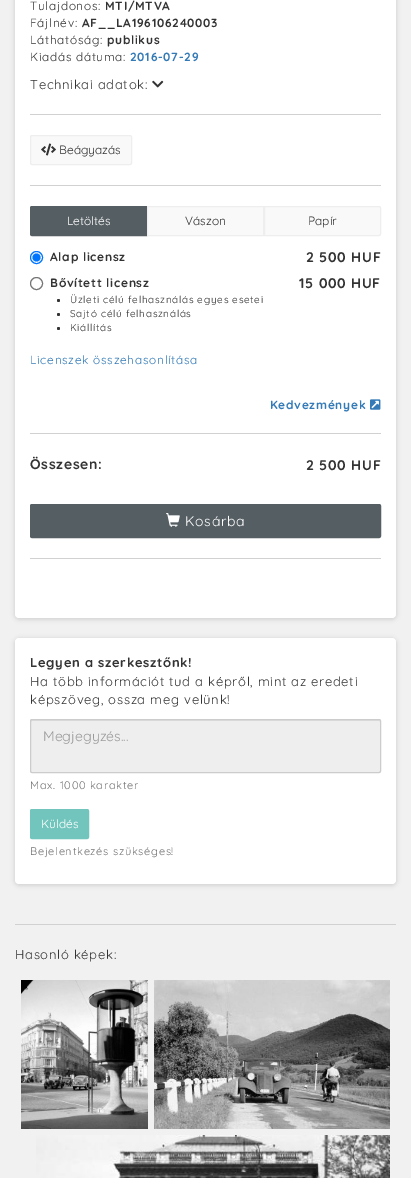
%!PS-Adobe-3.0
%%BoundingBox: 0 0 411 1178
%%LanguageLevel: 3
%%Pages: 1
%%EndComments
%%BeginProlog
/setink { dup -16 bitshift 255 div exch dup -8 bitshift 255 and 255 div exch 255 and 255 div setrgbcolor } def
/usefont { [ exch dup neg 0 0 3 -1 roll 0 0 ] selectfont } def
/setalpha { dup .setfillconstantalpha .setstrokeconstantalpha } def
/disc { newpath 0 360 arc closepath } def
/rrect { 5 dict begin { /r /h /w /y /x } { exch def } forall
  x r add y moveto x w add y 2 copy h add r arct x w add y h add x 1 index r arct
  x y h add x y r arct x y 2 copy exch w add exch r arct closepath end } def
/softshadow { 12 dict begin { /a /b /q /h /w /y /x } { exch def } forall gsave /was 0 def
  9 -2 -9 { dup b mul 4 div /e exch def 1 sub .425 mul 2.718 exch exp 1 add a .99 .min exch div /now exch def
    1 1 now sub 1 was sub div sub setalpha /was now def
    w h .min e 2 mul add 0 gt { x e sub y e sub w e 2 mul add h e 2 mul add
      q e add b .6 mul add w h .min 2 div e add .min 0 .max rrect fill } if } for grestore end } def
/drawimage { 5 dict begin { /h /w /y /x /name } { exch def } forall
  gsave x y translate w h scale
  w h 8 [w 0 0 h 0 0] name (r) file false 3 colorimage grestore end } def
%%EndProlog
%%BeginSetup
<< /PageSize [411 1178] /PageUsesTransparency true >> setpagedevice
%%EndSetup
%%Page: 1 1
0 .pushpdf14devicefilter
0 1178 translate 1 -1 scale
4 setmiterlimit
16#F1F1F1 setink
0 0 411 1178 rectfill
16#000000 setink
15 -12 381 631 4 2.5 0.15 softshadow
16#FFFFFF setink
15 -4 381 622 4 rrect fill
/Quicksand-Regular 11.9 usefont
16#333333 setink
30 10 moveto 0.7 0 (Tulajdonos:) ashow
/Quicksand-Bold 11.9 usefont
105 10 moveto 0.7 0 (MTI/MTVA) ashow
/Quicksand-Regular 11.9 usefont
30 27 moveto 0.7 0 (Fájlnév:) ashow
/Quicksand-Bold 11.9 usefont
82 27 moveto 0.7 0 (AF__LA196106240003) ashow
/Quicksand-Regular 11.9 usefont
30 44 moveto 0.7 0 (Láthatóság:) ashow
/Quicksand-Bold 11.9 usefont
107 44 moveto 0.7 0 (publikus) ashow
/Quicksand-Regular 11.9 usefont
30 61 moveto 0.7 0 (Kiadás dátuma:) ashow
/Quicksand-Bold 11.9 usefont
16#337AB7 setink
130 61 moveto 0.7 0 (2016-07-29) ashow
/Quicksand-Regular 13 usefont
16#333333 setink
30 89 moveto 0.7 0 (Technikai adatok:) ashow
(img1.raw) 152 80 12 8 drawimage
16#D1D1D1 setink
30 114 351 1 rectfill
16#F9F9F9 setink
30.5 135.5 101 29 1.5 rrect gsave fill grestore
16#EEEEEE setink
stroke
(img2.raw) 41 143 15 13 drawimage
/Quicksand-Regular 12 usefont
16#333333 setink
59 154 moveto (Beágyazás) show
16#D1D1D1 setink
30 185 351 1 rectfill
16#555E63 setink
32 206.5 moveto 146.5 206.5 lineto 146.5 235.5 lineto 32 235.5 lineto 31 235.5 30.5 235 30.5 234 curveto 30.5 208 lineto 30.5 207 31 206.5 32 206.5 curveto closepath gsave fill grestore
stroke
16#FFFFFF setink
67 225 moveto (Letöltés) show
16#F9F9F9 setink
147.5 206.5 moveto 263.5 206.5 lineto 263.5 235.5 lineto 147.5 235.5 lineto closepath gsave fill grestore
16#EEEEEE setink
stroke
16#333333 setink
185 225 moveto (Vászon) show
16#F9F9F9 setink
264.5 206.5 moveto 379 206.5 lineto 380 206.5 380.5 207 380.5 208 curveto 380.5 234 lineto 380.5 235 380 235.5 379 235.5 curveto 264.5 235.5 lineto closepath gsave fill grestore
16#EEEEEE setink
stroke
16#333333 setink
308 225 moveto (Papír) show
16#0075FF setink
36.5 257.5 6 disc stroke
36.5 257.5 4 disc fill
/Quicksand-Bold 12 usefont
16#333333 setink
50 261 moveto 0.7 0 (Alap licensz) ashow
/Quicksand-Bold 14 usefont
306 262 moveto 0.7 0 (2 500 HUF) ashow
16#767676 setink
36.5 283.5 6 disc stroke
/Quicksand-Bold 12 usefont
16#333333 setink
50 287 moveto 0.7 0 (Bővített licensz) ashow
/Quicksand-Bold 14 usefont
299 288 moveto 0.7 0 (15 000 HUF) ashow
58.5 300.5 1.5 disc fill
/Quicksand-Regular 10 usefont
70 303 moveto 0.7 0 (Üzleti célú felhasználás egyes esetei) ashow
58.5 314.5 1.5 disc fill
70 317 moveto 0.7 0 (Sajtó célú felhasználás) ashow
58.5 328.5 1.5 disc fill
70 331 moveto 0.7 0 (Kiállítás) ashow
/Quicksand-Regular 11.9 usefont
16#337AB7 setink
30 364 moveto 0.7 0 (Licenszek összehasonlítása) ashow
/Quicksand-Bold 11.9 usefont
270 409 moveto 0.7 0 (Kedvezmények) ashow
(img3.raw) 370 399 11 11 drawimage
16#D1D1D1 setink
30 433 351 1 rectfill
/Quicksand-Bold 14 usefont
16#333333 setink
30 469 moveto 0.7 0 (Összesen:) ashow
306 470 moveto 0.7 0 (2 500 HUF) ashow
16#555E63 setink
30.5 504.5 350 33 1.5 rrect gsave fill grestore
stroke
(img4.raw) 166 513 14 14 drawimage
/Quicksand-Regular 14 usefont
16#FFFFFF setink
185 526 moveto 0.7 0 (Kosárba) ashow
16#D1D1D1 setink
30 558 351 1 rectfill
16#000000 setink
15 639 381 246 4 2.5 0.15 softshadow
16#FFFFFF setink
15 638 381 246 4 rrect fill
/Quicksand-Bold 13 usefont
16#333333 setink
30 667 moveto 0.7 0 (Legyen a szerkesztőnk!) ashow
/Quicksand-Regular 13 usefont
30 686 moveto 0.7 0 (Ha több információt tud a képről, mint az eredeti) ashow
30 704 moveto 0.7 0 (képszöveg, ossza meg velünk!) ashow
16#EEEEEE setink
30 719 351 54 2 rrect fill
16#DCDCDC setink
32 721 moveto 379 721 lineto 380 721 380 721 380 722 curveto 380 721 lineto 379 720 lineto 31 720 lineto 31 722 lineto 31 721 31 721 32 721 curveto closepath fill
16#CCCCCC setink
30.5 719.5 350 53 1.5 rrect stroke
/Quicksand-Regular 14 usefont
16#999999 setink
43 741 moveto (Megjegyzés...) show
/Quicksand-Regular 11 usefont
16#737373 setink
30 789 moveto 0.7 0 (Max. 1000 karakter) ashow
16#72C5BD setink
30.5 809.5 58 29 1.5 rrect gsave fill grestore
stroke
/Quicksand-Regular 12 usefont
16#FFFFFF setink
41 828 moveto (Küldés) show
/Quicksand-Regular 11 usefont
16#737373 setink
30 855 moveto 0.7 0 (Bejelentkezés szükséges!) ashow
16#D1D1D1 setink
15 924 381 1 rectfill
/Quicksand-Regular 13 usefont
16#333333 setink
15 959 moveto 0.7 0 (Hasonló képek:) ashow
(img5.raw) 21 980 127 149 drawimage
(img6.raw) 154 980 236 149 drawimage
(img7.raw) 36 1135 354 43 drawimage
.poppdf14devicefilter showpage
%%EOF
